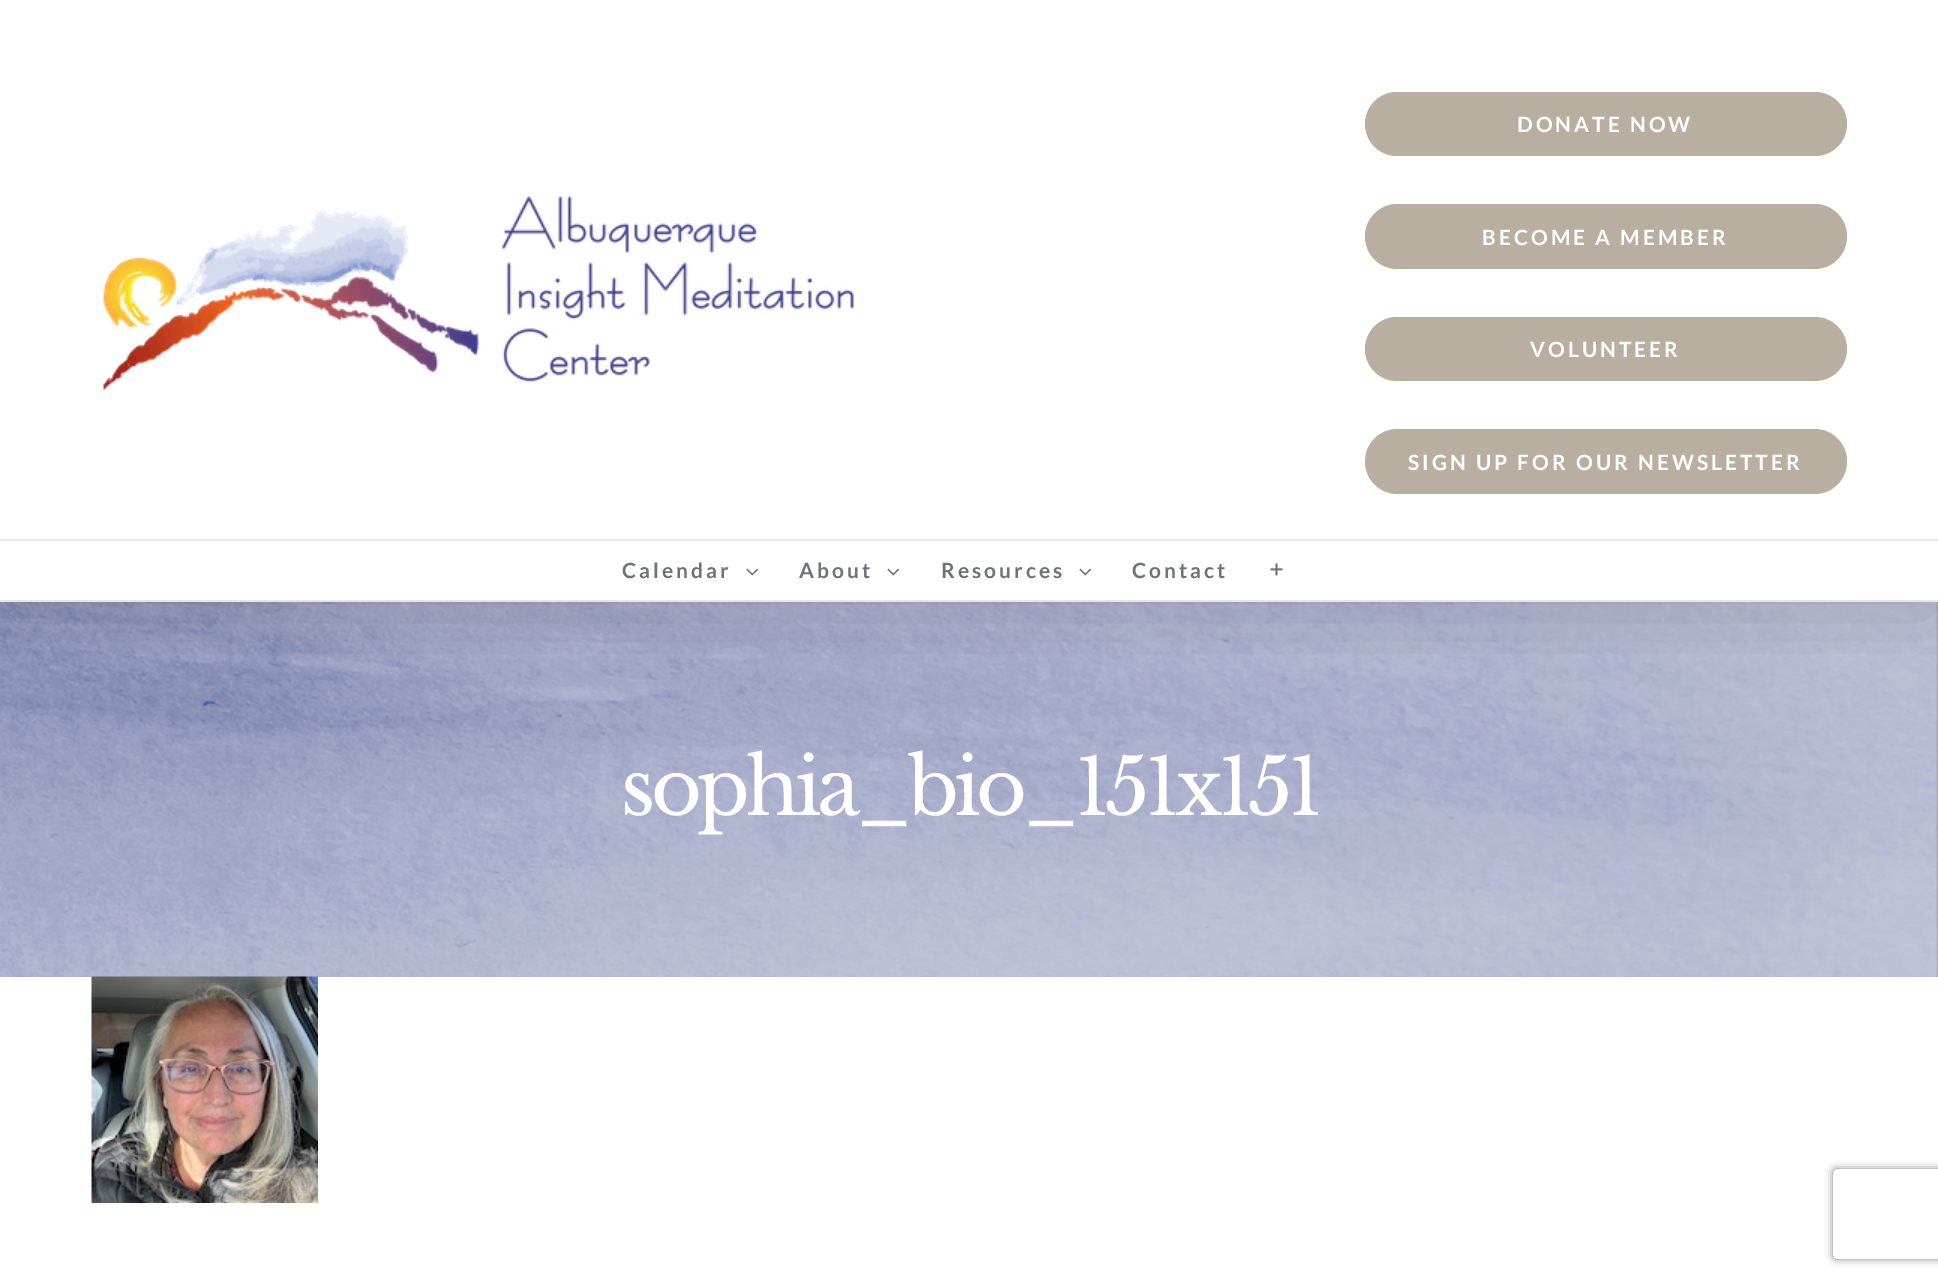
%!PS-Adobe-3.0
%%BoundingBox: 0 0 1938 1279
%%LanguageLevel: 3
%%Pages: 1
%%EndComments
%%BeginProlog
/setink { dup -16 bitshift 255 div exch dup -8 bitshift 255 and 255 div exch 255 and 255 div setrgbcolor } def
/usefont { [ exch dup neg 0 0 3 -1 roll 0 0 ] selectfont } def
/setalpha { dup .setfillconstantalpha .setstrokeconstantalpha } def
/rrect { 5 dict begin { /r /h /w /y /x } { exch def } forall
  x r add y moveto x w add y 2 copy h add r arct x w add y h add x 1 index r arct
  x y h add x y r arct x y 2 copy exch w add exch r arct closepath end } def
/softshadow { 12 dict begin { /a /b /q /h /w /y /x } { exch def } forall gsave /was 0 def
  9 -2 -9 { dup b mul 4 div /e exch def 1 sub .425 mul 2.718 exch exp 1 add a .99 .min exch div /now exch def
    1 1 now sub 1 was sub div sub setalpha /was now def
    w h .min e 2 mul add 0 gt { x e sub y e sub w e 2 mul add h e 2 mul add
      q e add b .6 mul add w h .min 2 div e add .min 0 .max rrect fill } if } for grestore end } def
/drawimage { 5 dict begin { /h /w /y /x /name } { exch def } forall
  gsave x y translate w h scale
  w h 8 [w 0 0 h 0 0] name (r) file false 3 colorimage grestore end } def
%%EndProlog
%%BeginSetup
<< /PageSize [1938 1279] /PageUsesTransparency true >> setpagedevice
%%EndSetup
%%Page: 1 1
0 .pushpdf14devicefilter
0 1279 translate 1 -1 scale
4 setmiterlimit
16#FFFFFF setink
0 0 1938 1279 rectfill
(img4.raw) 0 602 1938 375 drawimage
gsave
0 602 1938 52 rectclip
16#000000 setink
3 18 1932 596 0 37.5 0.14 softshadow
grestore
16#E5E5E5 setink
0 539 1938 2 rectfill
(img1.raw) 103 196 751 194 drawimage
16#B9AFA1 setink
1365 92 482 64 32 rrect fill
/Lato-Bold 21 usefont
16#FFFFFF setink
1517 132 moveto 3 0 (DONATE NOW) ashow
16#B9AFA1 setink
1365 204 482 65 32.5 rrect fill
16#FFFFFF setink
1482 245 moveto 3 0 (BECOME A MEMBER) ashow
16#B9AFA1 setink
1365 317 482 64 32 rrect fill
16#FFFFFF setink
1530 357 moveto 3 0 (VOLUNTEER) ashow
16#B9AFA1 setink
1365 429 482 65 32.5 rrect fill
16#FFFFFF setink
1408 470 moveto 3 0 (SIGN UP FOR OUR NEWSLETTER) ashow
16#E5E5E5 setink
0 600 1938 2 rectfill
16#6F727B setink
622 578 moveto 3 0 (Calendar) ashow
(img2.raw) 746 568 12 8 drawimage
799 578 moveto 3 0 (About) ashow
(img2.raw) 887 568 12 8 drawimage
941 578 moveto 3 0 (Resources) ashow
(img2.raw) 1079 568 12 8 drawimage
1132 578 moveto 3 0 (Contact) ashow
(img3.raw) 1270 563 13 13 drawimage
/LibreBaskerville-Regular 78 usefont
16#FFFFFF setink
620 815 moveto -4.5 0 (sophia_bio_151x151) ashow
(img5.raw) 91 976 227 227 drawimage
gsave
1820 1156 moveto 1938 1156 lineto 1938 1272 lineto 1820 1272 lineto closepath 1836 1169 moveto 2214 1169 lineto 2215.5 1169 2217 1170.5 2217 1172 curveto 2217 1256 lineto 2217 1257.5 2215.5 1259 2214 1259 curveto 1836 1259 lineto 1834.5 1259 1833 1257.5 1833 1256 curveto 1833 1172 lineto 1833 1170.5 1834.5 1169 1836 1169 curveto closepath eoclip newpath
16#808080 setink
1833 1169 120 90 3 4 1 softshadow
grestore
.poppdf14devicefilter showpage
%%EOF
